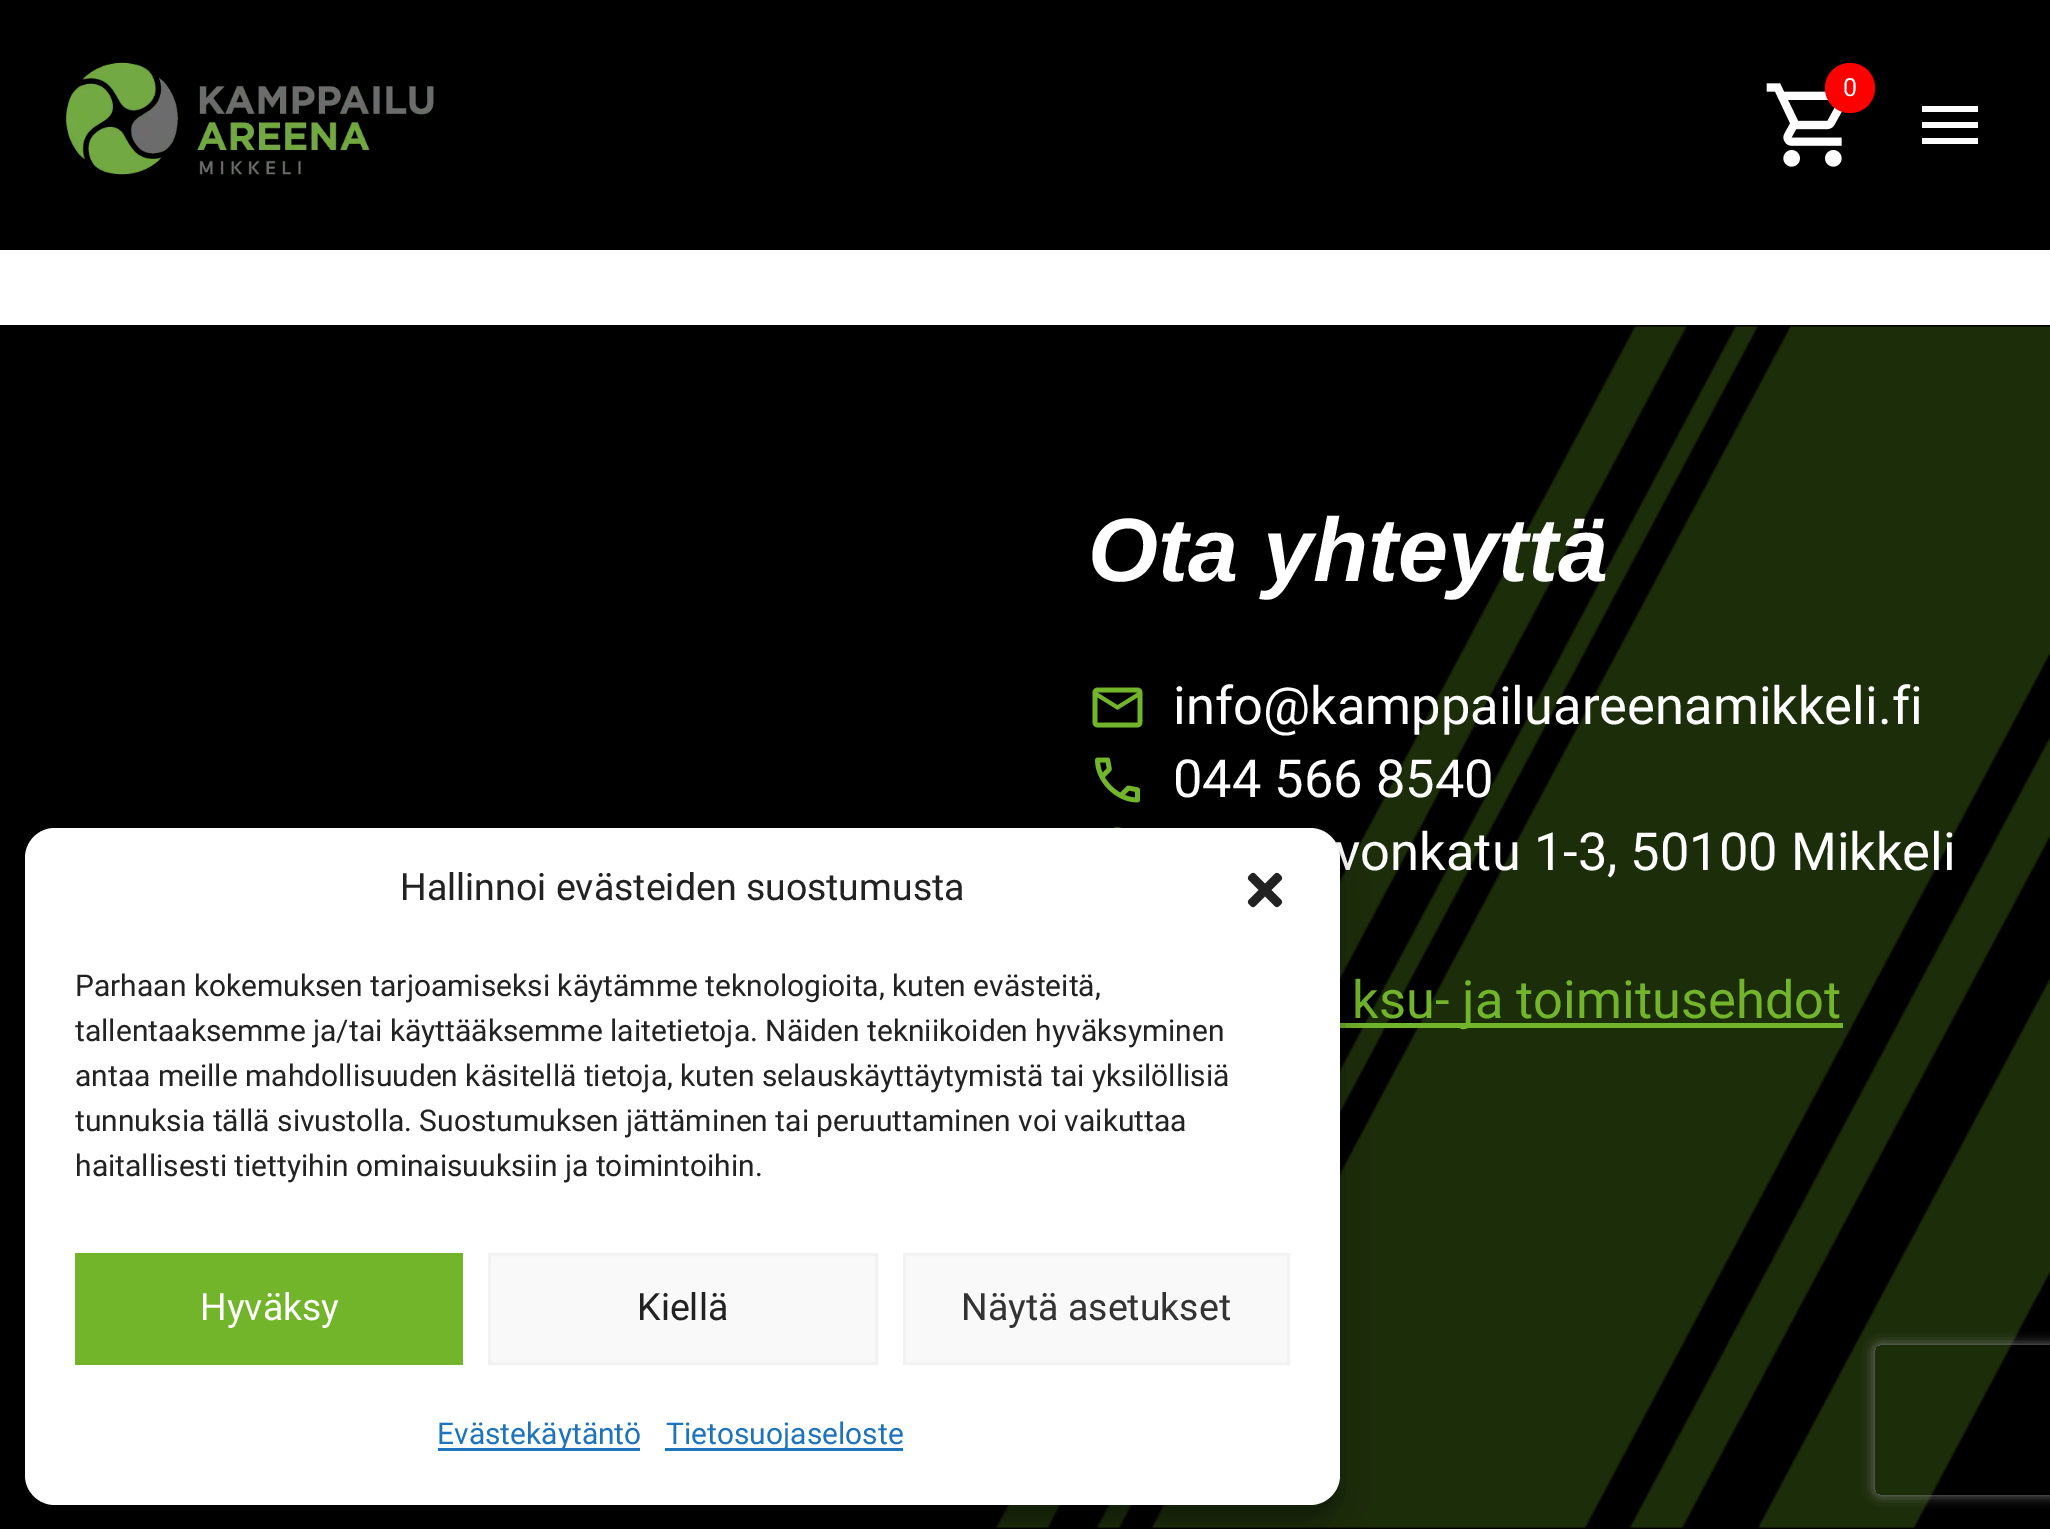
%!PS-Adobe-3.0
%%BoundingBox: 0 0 2050 1529
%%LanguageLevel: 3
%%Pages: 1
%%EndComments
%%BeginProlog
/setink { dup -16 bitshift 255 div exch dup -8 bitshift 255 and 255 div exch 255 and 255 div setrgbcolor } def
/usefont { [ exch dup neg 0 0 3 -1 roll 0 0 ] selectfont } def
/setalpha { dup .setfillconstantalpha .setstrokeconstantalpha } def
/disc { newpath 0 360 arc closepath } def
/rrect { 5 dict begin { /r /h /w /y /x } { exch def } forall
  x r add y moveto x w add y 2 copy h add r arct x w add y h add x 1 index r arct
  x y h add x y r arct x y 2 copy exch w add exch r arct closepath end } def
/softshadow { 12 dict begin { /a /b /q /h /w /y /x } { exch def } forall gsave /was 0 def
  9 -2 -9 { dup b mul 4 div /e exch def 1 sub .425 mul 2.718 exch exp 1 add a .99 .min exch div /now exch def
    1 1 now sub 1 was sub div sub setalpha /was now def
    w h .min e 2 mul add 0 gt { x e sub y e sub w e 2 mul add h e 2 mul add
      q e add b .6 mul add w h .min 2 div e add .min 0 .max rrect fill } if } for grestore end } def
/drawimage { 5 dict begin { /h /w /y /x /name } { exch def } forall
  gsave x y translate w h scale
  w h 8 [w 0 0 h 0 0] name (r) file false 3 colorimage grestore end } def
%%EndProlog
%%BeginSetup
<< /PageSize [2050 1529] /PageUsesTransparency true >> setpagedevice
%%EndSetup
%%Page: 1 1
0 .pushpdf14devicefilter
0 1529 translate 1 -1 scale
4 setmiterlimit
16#FFFFFF setink
0 0 2050 1529 rectfill
16#000000 setink
0 0 2050 250 rectfill
(img1.raw) 66 62 368 113 drawimage
(img2.raw) 1766 83 77 84 drawimage
16#FF0000 setink
1850 88 25 disc fill
/Roboto-Regular 25 usefont
16#FFFFFF setink
1843 96 moveto (0) show
1922 144 moveto 1922 138 lineto 1978 138 lineto 1978 144 lineto closepath 1922 128 moveto 1922 122 lineto 1978 122 lineto 1978 128 lineto closepath 1922 112 moveto 1922 106 lineto 1978 106 lineto 1978 112 lineto closepath fill
16#000000 setink
0 325 2050 1204 rectfill
(img3.raw) 996 326 1054 1202 drawimage
/LiberationSans-BoldItalic 90 usefont
16#FFFFFF setink
1088 581 moveto (Ota yhteyttä) show
(img4.raw) 1092 687 51 41 drawimage
/Roboto-Regular 52.5 usefont
1173 724 moveto (info@kamppailuareenamikkeli.fi) show
(img5.raw) 1095 757 45 46 drawimage
1173 797 moveto (044 566 8540) show
(img6.raw) 1113 827 9 1 drawimage
1335 870 moveto (vonkatu 1-3, 50100 Mikkeli) show
16#72B52A setink
1340 1023 503 5 rectfill
1352 1018 moveto (ksu- ja toimitusehdot) show
16#000000 setink
25 843 1315 677 30 7.5 0.23 softshadow
25 853 1315 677 30 25 0.19 softshadow
16#FFFFFF setink
25 828 1315 677 30 rrect fill
/Roboto-Regular 37.5 usefont
16#222222 setink
400 900 moveto (Hallinnoi evästeiden suostumusta) show
(img7.raw) 1247 872 36 36 drawimage
/Roboto-Regular 30 usefont
[
    [(Parhaan kokemuksen tarjoamiseksi käytämme teknologioita, kuten evästeitä,) 75 996]
    [(tallentaaksemme ja/tai käyttääksemme laitetietoja. Näiden tekniikoiden hyväksyminen) 75 1041]
    [(antaa meille mahdollisuuden käsitellä tietoja, kuten selauskäyttäytymistä tai yksilöllisiä) 75 1086]
    [(tunnuksia tällä sivustolla. Suostumuksen jättäminen tai peruuttaminen voi vaikuttaa) 75 1131]
    [(haitallisesti tiettyihin ominaisuuksiin ja toimintoihin.) 75 1176]
] { aload pop moveto show } forall
16#72B52A setink
75 1253 388 112 rectfill
/Roboto-Regular 37.5 usefont
16#FFFFFF setink
200 1320 moveto (Hyväksy) show
16#F9F9F9 setink
489.5 1254.5 moveto 876.5 1254.5 lineto 876.5 1363.5 lineto 489.5 1363.5 lineto closepath gsave fill grestore
16#F2F2F2 setink
3 setlinewidth
stroke
16#222222 setink
637 1320 moveto (Kiellä) show
16#F9F9F9 setink
904.5 1254.5 moveto 1288.5 1254.5 lineto 1288.5 1363.5 lineto 904.5 1363.5 lineto closepath gsave fill grestore
16#F2F2F2 setink
stroke
16#333333 setink
961 1320 moveto (Näytä asetukset) show
16#1E73BE setink
438 1448 202 3 rectfill
/Roboto-Regular 30 usefont
437 1444 moveto (Evästekäytäntö) show
665 1448 238 3 rectfill
666 1444 moveto (Tietosuojaseloste) show
gsave
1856 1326 moveto 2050 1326 lineto 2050 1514 lineto 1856 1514 lineto closepath 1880 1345 moveto 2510 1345 lineto 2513 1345 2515 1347 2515 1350 curveto 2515 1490 lineto 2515 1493 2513 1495 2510 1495 curveto 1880 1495 lineto 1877 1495 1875 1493 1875 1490 curveto 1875 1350 lineto 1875 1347 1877 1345 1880 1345 curveto closepath eoclip newpath
16#808080 setink
1875 1345 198 150 5 6 1 softshadow
grestore
.poppdf14devicefilter showpage
%%EOF
